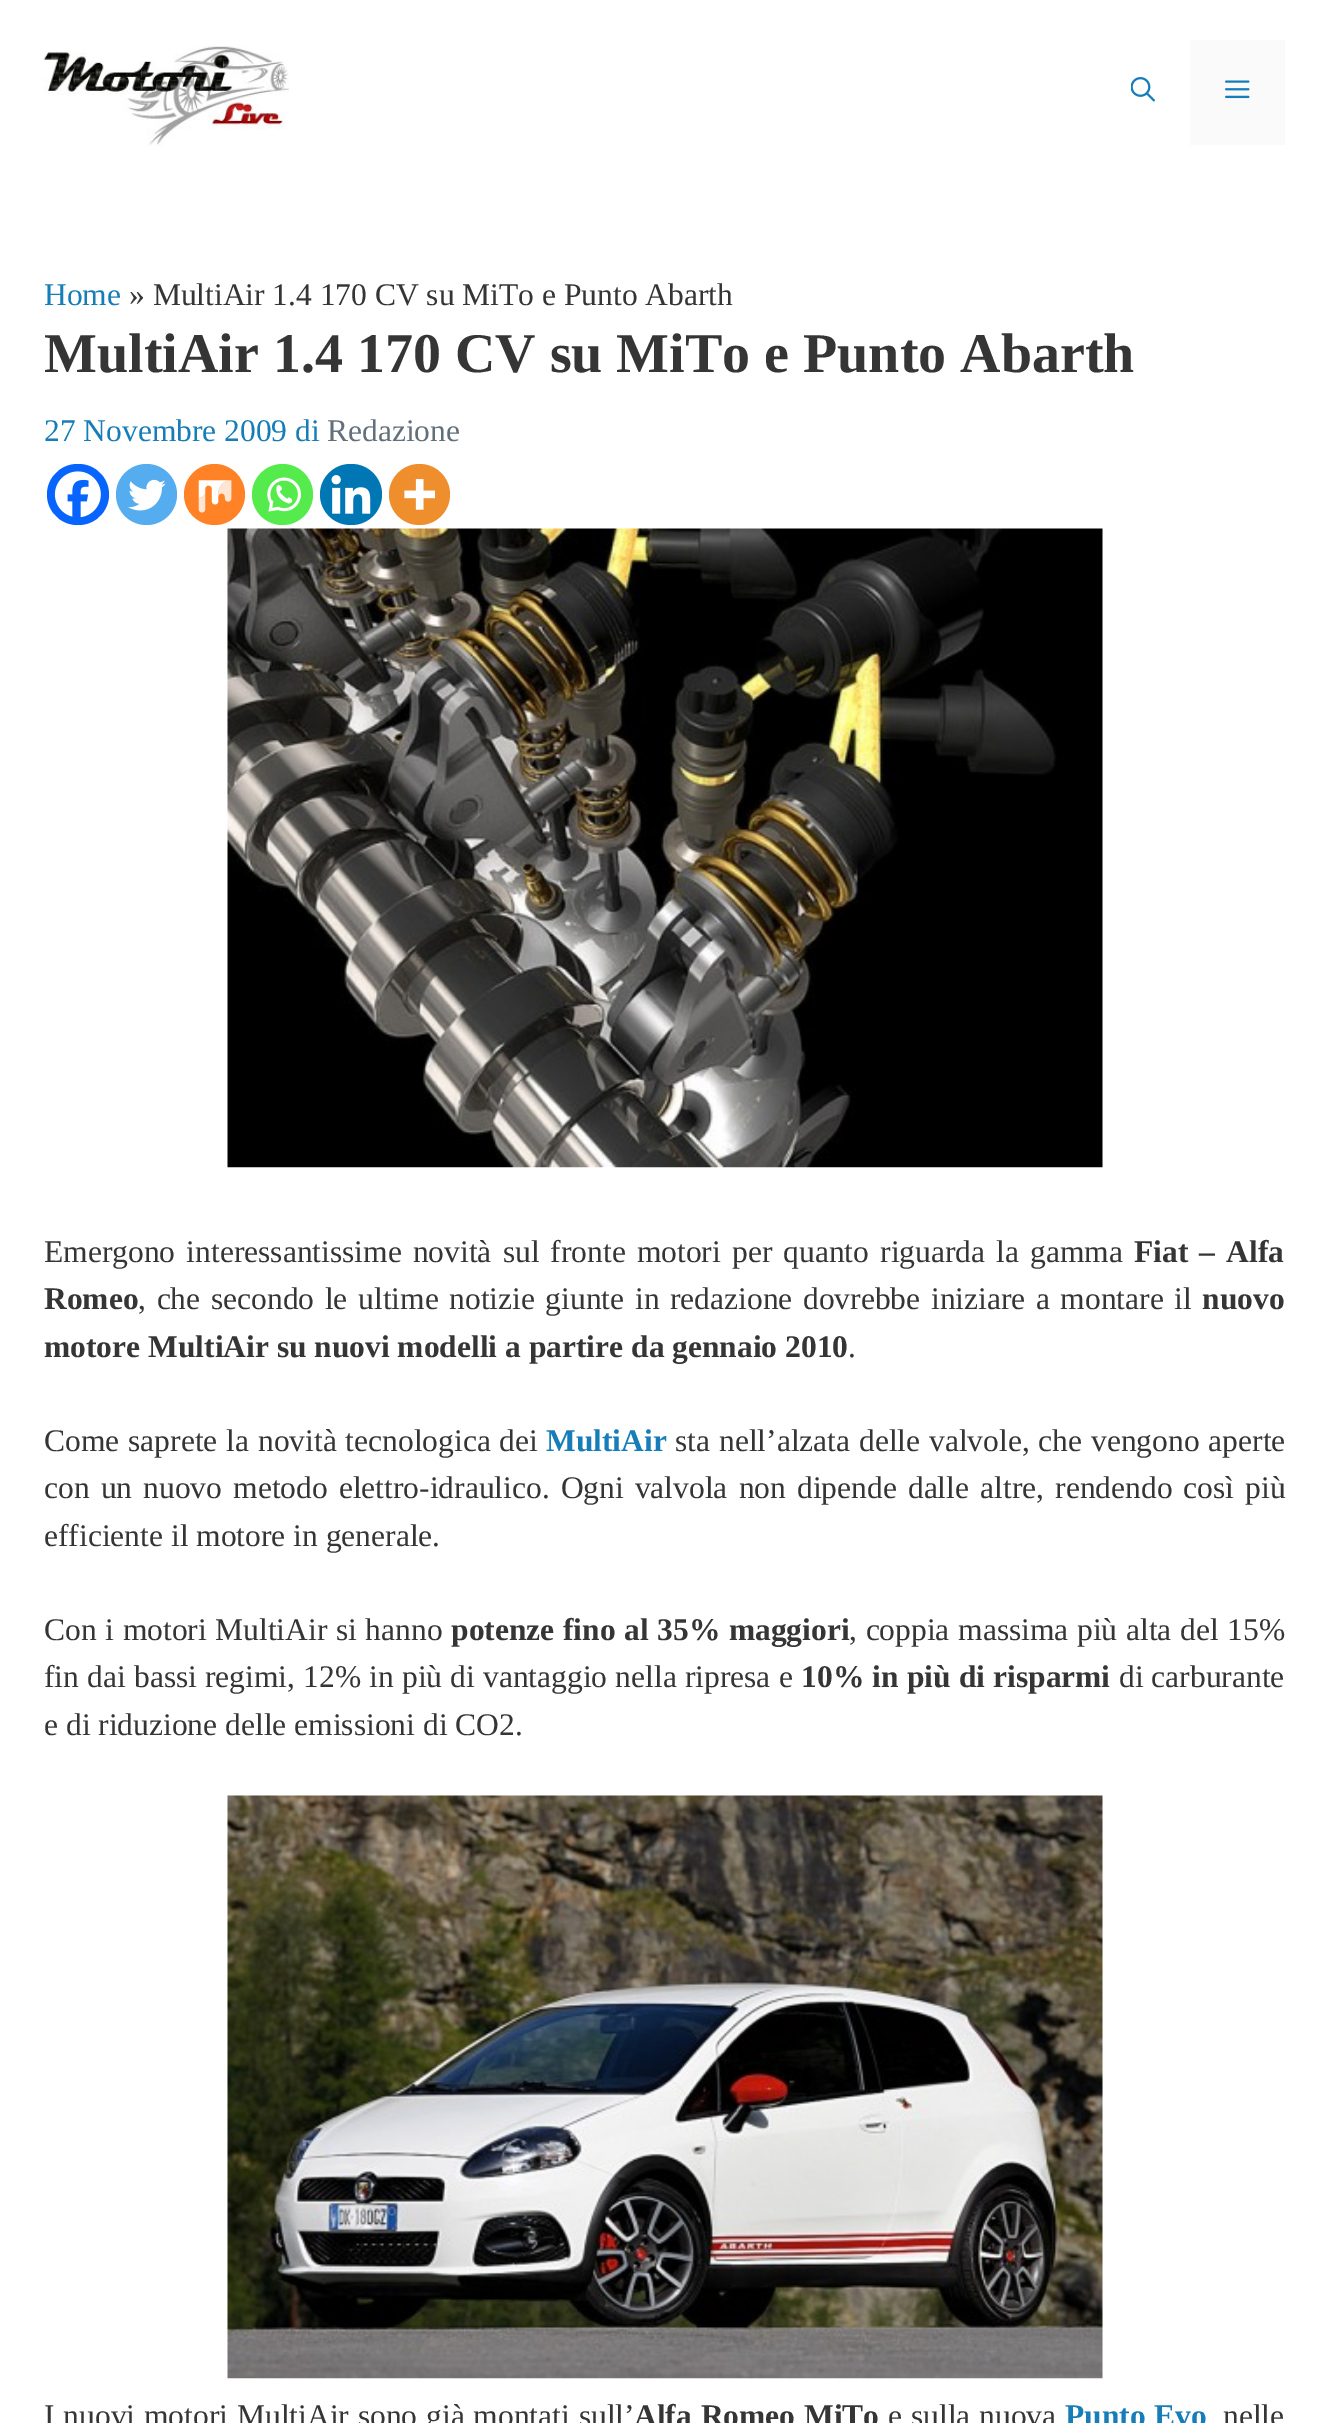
%!PS-Adobe-3.0
%%BoundingBox: 0 0 1327 2423
%%LanguageLevel: 3
%%Pages: 1
%%EndComments
%%BeginProlog
/setink { dup -16 bitshift 255 div exch dup -8 bitshift 255 and 255 div exch 255 and 255 div setrgbcolor } def
/usefont { [ exch dup neg 0 0 3 -1 roll 0 0 ] selectfont } def
/disc { newpath 0 360 arc closepath } def
/rrect { 5 dict begin { /r /h /w /y /x } { exch def } forall
  x r add y moveto x w add y 2 copy h add r arct x w add y h add x 1 index r arct
  x y h add x y r arct x y 2 copy exch w add exch r arct closepath end } def
/drawimage { 5 dict begin { /h /w /y /x /name } { exch def } forall
  gsave x y translate w h scale
  w h 8 [w 0 0 h 0 0] name (r) file false 3 colorimage grestore end } def
%%EndProlog
%%BeginSetup
<< /PageSize [1327 2423] >> setpagedevice
%%EndSetup
%%Page: 1 1
0 2423 translate 1 -1 scale
4 setmiterlimit
16#FFFFFF setink
0 0 1327 2423 rectfill
(img1.raw) 43 46 246 100 drawimage
(img2.raw) 1131 77 24 25 drawimage
16#FAFAFA setink
1190 40 95 105 rectfill
(img3.raw) 1225 80 25 19 drawimage
/LiberationSerif-Regular 31.5 usefont
16#167DB8 setink
44 305 moveto (Home) show
16#353535 setink
129 305 moveto (» MultiAir 1.4 170 CV su MiTo e Punto Abarth) show
/LiberationSerif-Bold 56 usefont
44 372 moveto (MultiAir 1.4 170 CV su MiTo e Punto Abarth) show
/LiberationSerif-Regular 31.5 usefont
16#167DB8 setink
44 441 moveto (27 Novembre 2009 di) show
16#62707C setink
327 441 moveto (Redazione) show
16#0765FE setink
47 464 62 61 30.5 rrect fill
(img4.raw) 54 471 47 47 drawimage
16#55ACEE setink
146.5 494.5 30.5 disc fill
(img5.raw) 128 479 38 32 drawimage
16#FF8226 setink
214.5 494.5 30.5 disc fill
(img6.raw) 198 480 34 33 drawimage
16#55EB4C setink
282.5 494.5 30.5 disc fill
(img7.raw) 267 477 34 35 drawimage
16#0077B5 setink
320 464 62 61 30.5 rrect fill
(img8.raw) 331 475 40 39 drawimage
16#EE8E2D setink
419.5 494.5 30.5 disc fill
(img9.raw) 404 479 31 31 drawimage
(img10.raw) 227 528 876 640 drawimage
16#353535 setink
44 1262 moveto 3.25 0 32 (Emergono interessantissime novità sul fronte motori per quanto riguarda la gamma) widthshow
/LiberationSerif-Bold 31.5 usefont
1134 1262 moveto 3.25 0 32 (Fiat – Alfa) widthshow
44 1309 moveto (Romeo) show
/LiberationSerif-Regular 31.5 usefont
138 1309 moveto 2.75 0 32 (, che secondo le ultime notizie giunte in redazione dovrebbe iniziare a montare il) widthshow
/LiberationSerif-Bold 31.5 usefont
1202 1309 moveto (nuovo) show
44 1357 moveto (motore MultiAir su nuovi modelli a partire da gennaio 2010) show
/LiberationSerif-Regular 31.5 usefont
848 1357 moveto (.) show
44 1451 moveto 1 0 32 (Come saprete la novità tecnologica dei) widthshow
/LiberationSerif-Bold 31.5 usefont
16#167DB8 setink
546 1451 moveto (MultiAir) show
/LiberationSerif-Regular 31.5 usefont
16#353535 setink
675 1451 moveto 1 0 32 (sta nell’alzata delle valvole, che vengono aperte) widthshow
44 1498 moveto 3.25 0 32 (con un nuovo metodo elettro-idraulico. Ogni valvola non dipende dalle altre, rendendo così più) widthshow
44 1546 moveto (efficiente il motore in generale.) show
44 1640 moveto 0.75 0 32 (Con i motori MultiAir si hanno) widthshow
/LiberationSerif-Bold 31.5 usefont
451 1640 moveto 0.75 0 32 (potenze fino al 35% maggiori) widthshow
/LiberationSerif-Regular 31.5 usefont
849 1640 moveto 0.75 0 32 (, coppia massima più alta del 15%) widthshow
44 1687 moveto 0.3 0 32 (fin dai bassi regimi, 12% in più di vantaggio nella ripresa e) widthshow
/LiberationSerif-Bold 31.5 usefont
801 1687 moveto 0.3 0 32 (10% in più di risparmi) widthshow
/LiberationSerif-Regular 31.5 usefont
1119 1687 moveto (di carburante) show
44 1735 moveto (e di riduzione delle emissioni di CO2.) show
(img11.raw) 227 1795 876 584 drawimage
44 2426 moveto 1 0 32 (I nuovi motori MultiAir sono già montati sull’) widthshow
/LiberationSerif-Bold 31.5 usefont
634 2426 moveto 1 0 32 (Alfa Romeo MiTo) widthshow
/LiberationSerif-Regular 31.5 usefont
888 2426 moveto 1 0 32 (e sulla nuova) widthshow
/LiberationSerif-Bold 31.5 usefont
16#167DB8 setink
1065 2426 moveto 1 0 32 (Punto Evo) widthshow
/LiberationSerif-Regular 31.5 usefont
16#353535 setink
1223 2426 moveto 1 0 32 (nelle) widthshow
showpage
%%EOF
